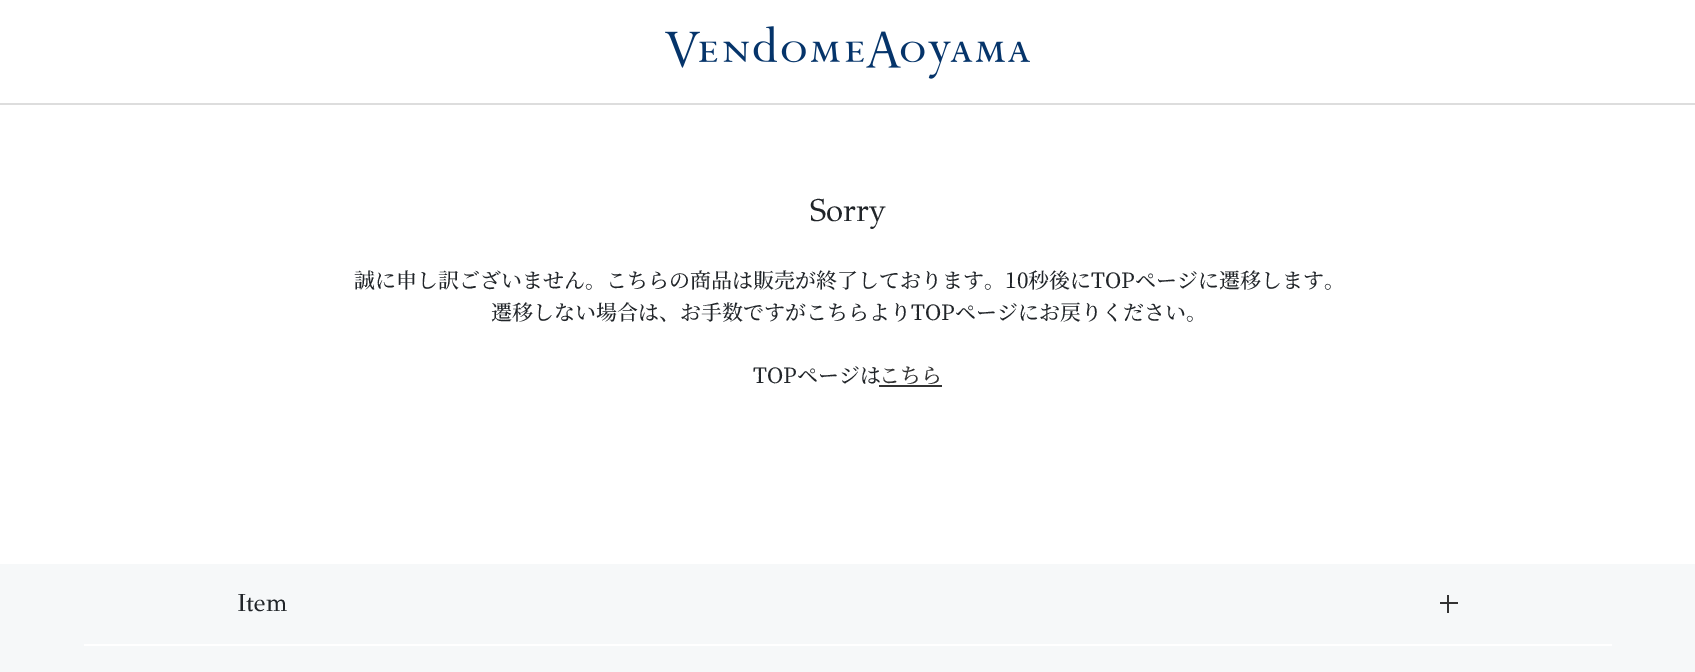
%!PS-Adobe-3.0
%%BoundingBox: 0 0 1695 672
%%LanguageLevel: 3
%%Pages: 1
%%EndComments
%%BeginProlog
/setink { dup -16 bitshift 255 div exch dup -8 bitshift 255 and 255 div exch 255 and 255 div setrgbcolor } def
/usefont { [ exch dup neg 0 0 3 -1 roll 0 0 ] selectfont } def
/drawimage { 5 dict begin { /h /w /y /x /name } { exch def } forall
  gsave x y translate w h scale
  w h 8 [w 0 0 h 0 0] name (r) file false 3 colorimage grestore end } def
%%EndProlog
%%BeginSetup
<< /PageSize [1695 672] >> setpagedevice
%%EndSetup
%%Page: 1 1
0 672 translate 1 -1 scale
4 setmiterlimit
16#FFFFFF setink
0 0 1695 672 rectfill
16#DDDDDD setink
0 103 1695 2 rectfill
(img1.raw) 665 26 365 53 drawimage
/GFSDidot-Regular 31.5 usefont
16#212529 setink
810 221 moveto (Sorry) show
/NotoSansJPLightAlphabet-Light 21 usefont
[
    [(誠に申し訳ございません。こちらの商品は販売が終了しております。10秒後にTOPページに遷移します。) 354 288]
    [(遷移しない場合は、お手数ですがこちらよりTOPページにお戻りください。) 491 320]
    [(TOPページは) 753 383]
] { aload pop moveto show } forall
16#333333 setink
879 383 moveto (こちら) show
879 385 63 2 rectfill
16#F6F8F9 setink
0 564 1695 108 rectfill
/GFSDidot-Regular 24.5 usefont
16#212529 setink
237 611 moveto (Item) show
[
    [1447 595 2 18 16#333333]
    [1440 602 18 2 16#333333]
    [84 644 1528 2 16#FFFFFF]
] { aload pop setink rectfill } forall
showpage
%%EOF
